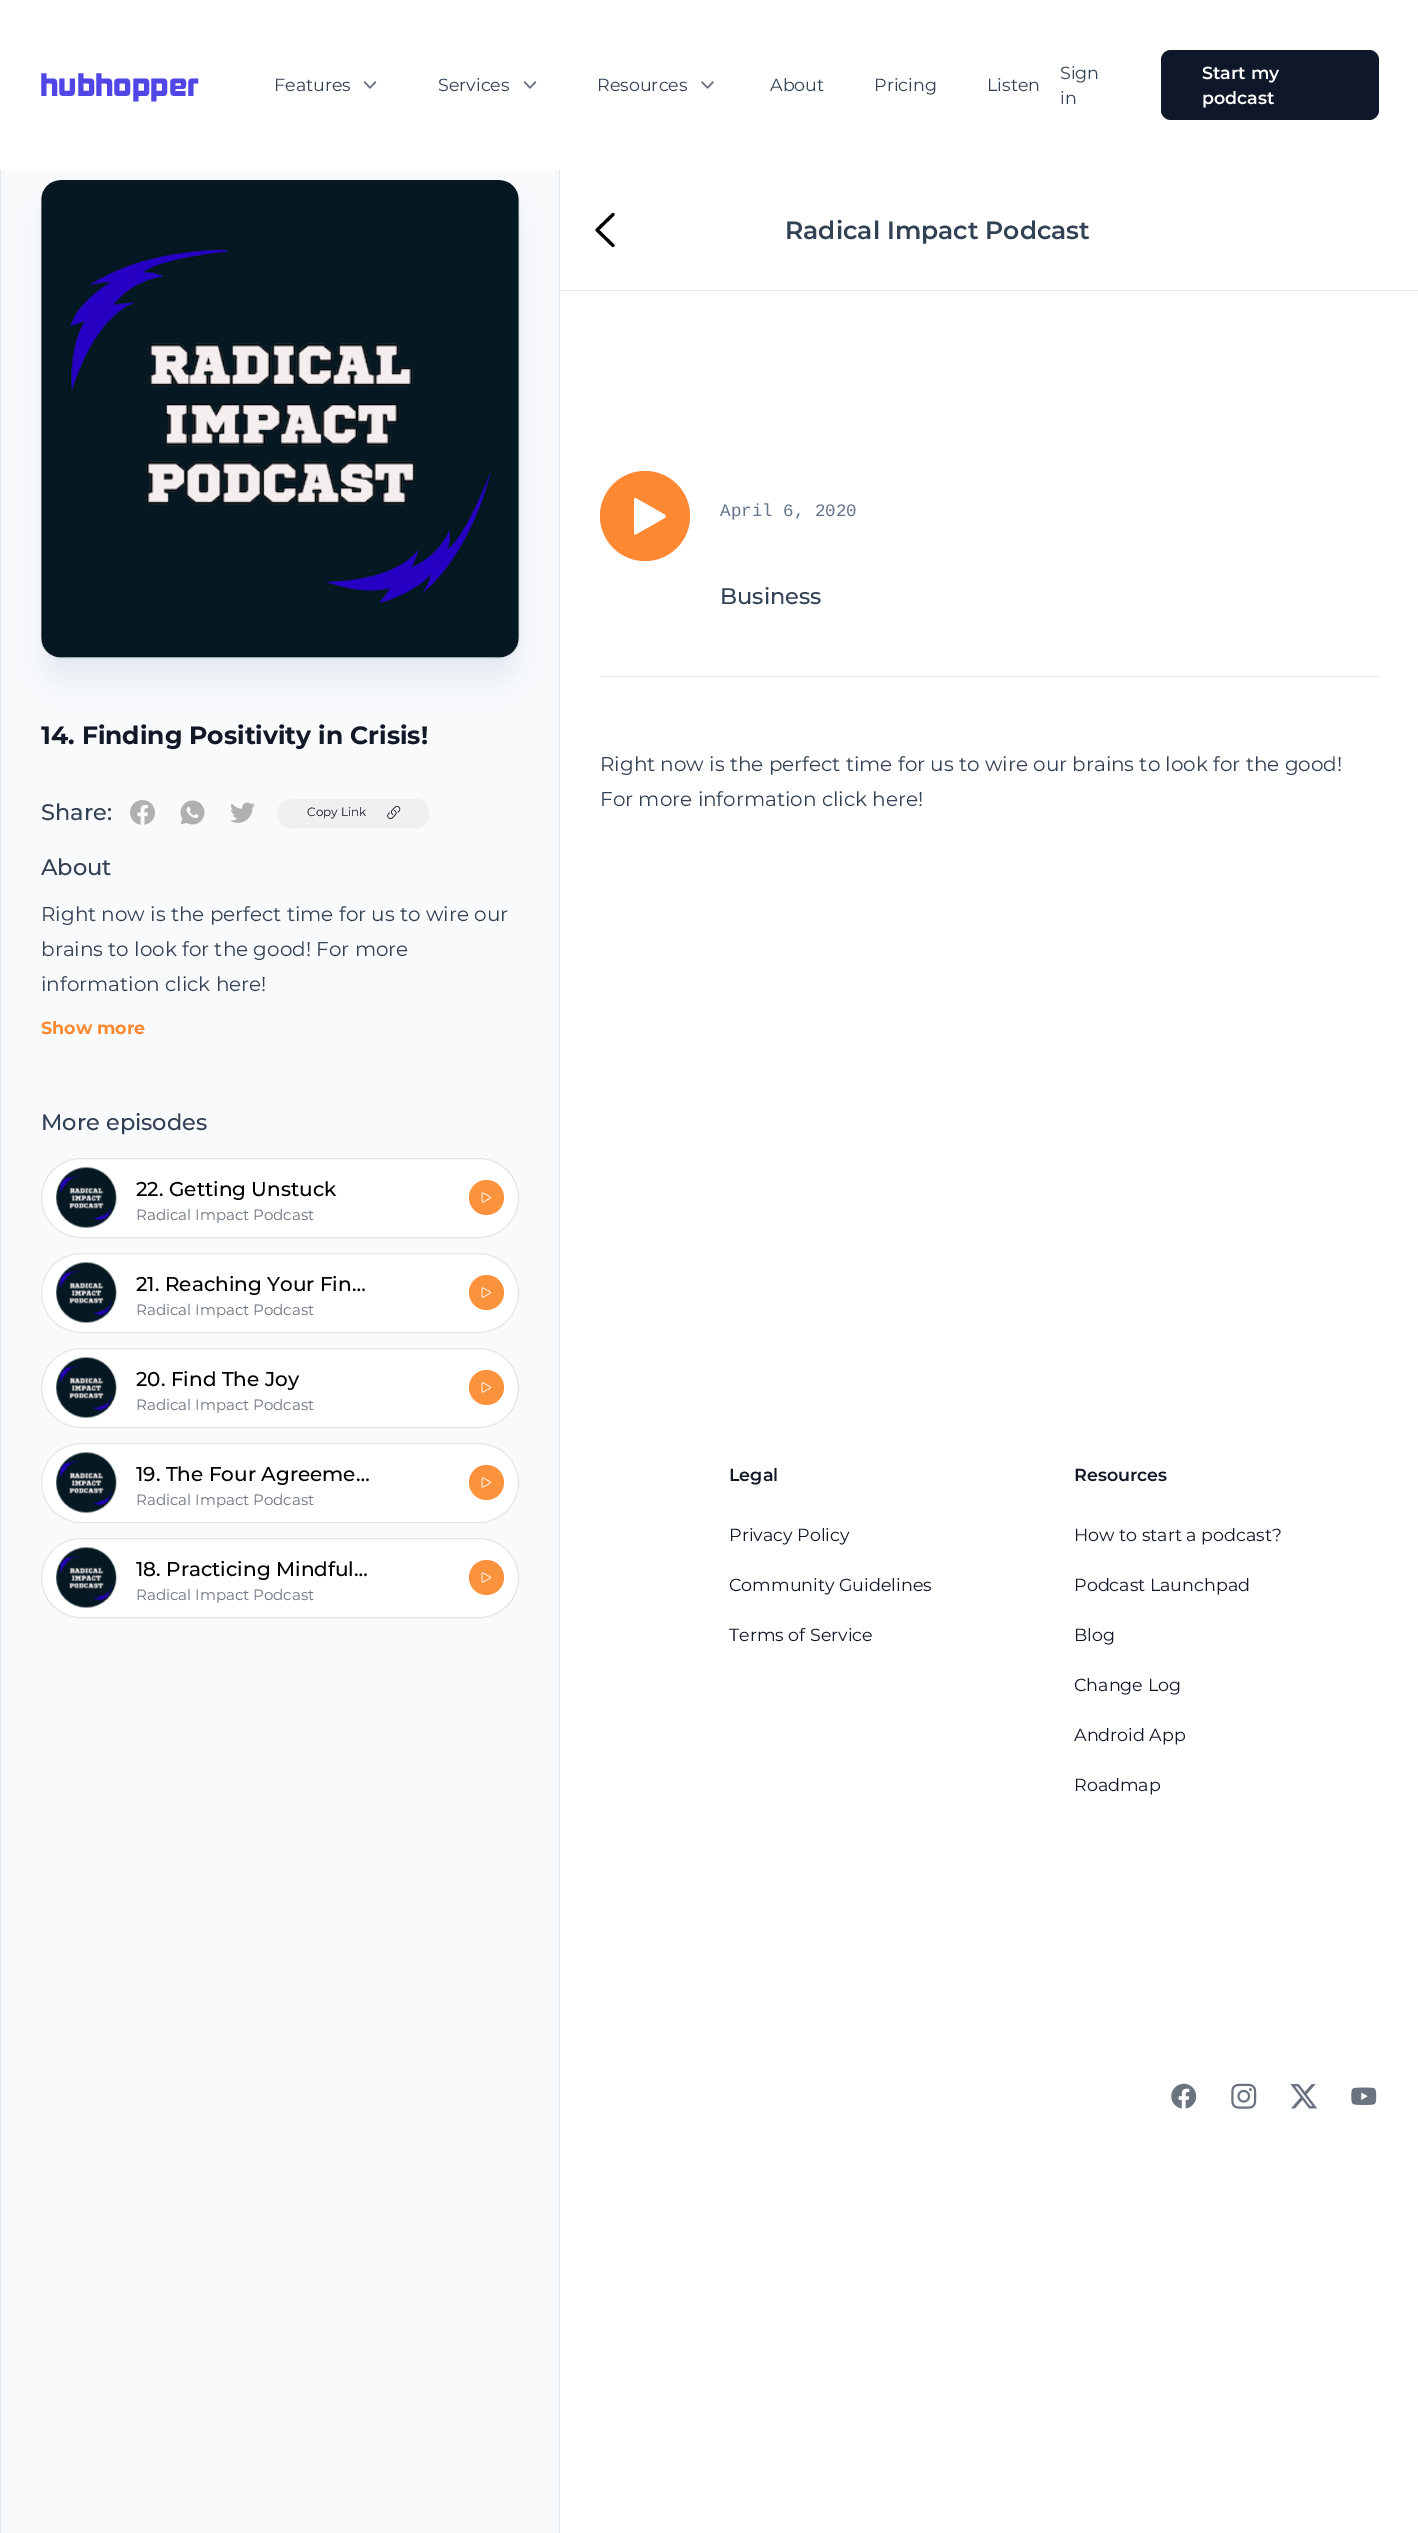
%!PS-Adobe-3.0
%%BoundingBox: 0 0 1418 2533
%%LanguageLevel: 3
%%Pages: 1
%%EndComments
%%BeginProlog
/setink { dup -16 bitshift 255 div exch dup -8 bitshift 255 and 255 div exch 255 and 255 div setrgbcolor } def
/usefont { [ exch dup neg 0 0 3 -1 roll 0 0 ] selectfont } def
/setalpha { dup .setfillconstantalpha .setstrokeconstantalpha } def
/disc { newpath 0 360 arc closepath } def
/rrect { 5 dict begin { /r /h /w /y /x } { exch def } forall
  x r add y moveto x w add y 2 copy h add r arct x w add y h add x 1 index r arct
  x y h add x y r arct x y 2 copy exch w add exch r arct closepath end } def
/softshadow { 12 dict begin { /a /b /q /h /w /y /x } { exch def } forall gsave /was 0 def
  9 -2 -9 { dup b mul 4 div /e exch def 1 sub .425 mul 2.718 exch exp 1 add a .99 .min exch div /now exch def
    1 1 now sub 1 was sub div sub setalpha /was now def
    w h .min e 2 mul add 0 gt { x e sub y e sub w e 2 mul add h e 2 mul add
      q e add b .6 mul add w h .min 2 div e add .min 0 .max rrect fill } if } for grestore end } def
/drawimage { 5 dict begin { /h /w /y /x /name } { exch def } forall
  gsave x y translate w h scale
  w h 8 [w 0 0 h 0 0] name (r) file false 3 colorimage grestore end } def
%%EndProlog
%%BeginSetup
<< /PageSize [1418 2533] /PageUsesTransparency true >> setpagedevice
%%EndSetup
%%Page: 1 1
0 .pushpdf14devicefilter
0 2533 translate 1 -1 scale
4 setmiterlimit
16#FFFFFF setink
0 0 1418 2533 rectfill
/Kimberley-Black 30 usefont
16#4F46E5 setink
40 96 moveto (hubhopper) show
/Montserrat-Regular 17.5 usefont
16#334155 setink
274 91 moveto (Features) show
(img1.raw) 363 81 14 8 drawimage
438 91 moveto (Services) show
(img1.raw) 523 81 14 8 drawimage
597 91 moveto (Resources) show
(img2.raw) 701 81 13 8 drawimage
[
    [(About) 770 91]
    [(Pricing) 874 91]
    [(Listen) 987 91]
    [(Sign) 1060 79]
    [(in) 1060 104]
] { aload pop moveto show } forall
16#0F172A setink
1161 50 218 70 10 rrect fill
/Montserrat-SemiBold 17.5 usefont
16#FFFFFF setink
1202 79 moveto (Start my) show
1202 104 moveto (podcast) show
[
    [1 170 558 2363 16#F8FAFC]
    [559 170 1 2363 16#E2E8F0]
    [0 170 1 2363 16#E2E8F0]
] { aload pop setink rectfill } forall
48 211 465 465 14 15.5 1 softshadow
16#E5E7EB setink
560 290 858 1 rectfill
16#000000 setink
3.1 setlinewidth
1 setlinecap
1 setlinejoin
613 245.5 moveto 597 230 lineto 613 214.5 lineto stroke
/Montserrat-SemiBold 25 usefont
16#334155 setink
785 239 moveto (Radical Impact Podcast) show
16#FF8933 setink
645 516 45 disc fill
16#FFFFFF setink
664.5 514.5 moveto 666 515.5 666 517 664.5 518 curveto 636.5 534 lineto 635.5 535 634 534 634 532.5 curveto 634 500 lineto 634 498.5 635.5 497.5 636.5 498.5 curveto closepath fill
/LiberationMono-Regular 17.5 usefont
16#64748B setink
720 516 moveto (April 6, 2020) show
/Montserrat-Medium 22.5 usefont
16#334155 setink
720 604 moveto (Business) show
16#E5E7EB setink
600 676 779 1 rectfill
/Montserrat-Regular 20 usefont
16#334155 setink
600 771 moveto (Right now is the perfect time for us to wire our brains to look for the good!) show
600 806 moveto (For more information click here!) show
16#E2E8F0 setink
49 198 462 462 13 6 1 softshadow
41 180 478 478 20 rrect fill
(img3.raw) 41 180 478 478 drawimage
0.1 setalpha
16#000000 setink
1 setlinewidth
0 setlinecap
0 setlinejoin
41.5 180.5 477 477 19.5 rrect stroke
/Montserrat-Bold 25 usefont
1 setalpha
16#111827 setink
41 744 moveto (14. Finding Positivity in Crisis!) show
/Montserrat-Medium 22.5 usefont
16#334155 setink
41 820 moveto (Share:) show
(img4.raw) 130 800 25 25 drawimage
(img5.raw) 180 800 25 25 drawimage
(img6.raw) 230 802 25 21 drawimage
16#000000 setink
278 800 151 28 14 1 0.05 softshadow
16#F0F0F0 setink
278 799 151 27 13.5 rrect fill
/Montserrat-Regular 12 usefont
16#111827 setink
307 816 moveto (Copy Link) show
(img7.raw) 387 806 14 13 drawimage
/Montserrat-Medium 22.5 usefont
16#334155 setink
41 875 moveto (About) show
/Montserrat-Regular 20 usefont
[
    [(Right now is the perfect time for us to wire our) 41 921]
    [(brains to look for the good! For more) 41 956]
    [(information click here!) 41 991]
] { aload pop moveto show } forall
/Montserrat-Bold 17.5 usefont
16#FF8933 setink
41 1034 moveto (Show more) show
/Montserrat-Medium 22.5 usefont
16#334155 setink
41 1130 moveto (More episodes) show
16#FFFFFF setink
41 1158 478 80 40 rrect fill
0.1 setalpha
16#000000 setink
41.5 1158.5 477 79 39.5 rrect stroke
1 setalpha
(img8.raw) 56 1167 61 61 drawimage
/Montserrat-Medium 20 usefont
136 1196 moveto (22. Getting Unstuck) show
/Montserrat-Regular 15 usefont
16#6B7280 setink
136 1220 moveto (Radical Impact Podcast) show
16#FB923C setink
486.5 1197.5 17.5 disc fill
(img9.raw) 481 1192 11 11 drawimage
16#FFFFFF setink
41 1253 478 80 40 rrect fill
0.1 setalpha
16#000000 setink
41.5 1253.5 477 79 39.5 rrect stroke
1 setalpha
(img10.raw) 56 1262 61 61 drawimage
/Montserrat-Medium 20 usefont
136 1291 moveto (21. Reaching Your Fin…) show
/Montserrat-Regular 15 usefont
16#6B7280 setink
136 1315 moveto (Radical Impact Podcast) show
16#FB923C setink
486.5 1292.5 17.5 disc fill
(img9.raw) 481 1287 11 11 drawimage
16#FFFFFF setink
41 1348 478 80 40 rrect fill
0.1 setalpha
16#000000 setink
41.5 1348.5 477 79 39.5 rrect stroke
1 setalpha
(img10.raw) 56 1357 61 61 drawimage
/Montserrat-Medium 20 usefont
136 1386 moveto (20. Find The Joy) show
/Montserrat-Regular 15 usefont
16#6B7280 setink
136 1410 moveto (Radical Impact Podcast) show
16#FB923C setink
486.5 1387.5 17.5 disc fill
(img9.raw) 481 1382 11 11 drawimage
16#FFFFFF setink
41 1443 478 80 40 rrect fill
0.1 setalpha
16#000000 setink
41.5 1443.5 477 79 39.5 rrect stroke
1 setalpha
(img10.raw) 56 1452 61 61 drawimage
/Montserrat-Medium 20 usefont
136 1481 moveto (19. The Four Agreeme…) show
/Montserrat-Regular 15 usefont
16#6B7280 setink
136 1505 moveto (Radical Impact Podcast) show
16#FB923C setink
486.5 1482.5 17.5 disc fill
(img9.raw) 481 1477 11 11 drawimage
16#FFFFFF setink
41 1538 478 80 40 rrect fill
0.1 setalpha
16#000000 setink
41.5 1538.5 477 79 39.5 rrect stroke
1 setalpha
(img11.raw) 56 1547 61 61 drawimage
/Montserrat-Medium 20 usefont
136 1576 moveto (18. Practicing Mindful…) show
/Montserrat-Regular 15 usefont
16#6B7280 setink
136 1600 moveto (Radical Impact Podcast) show
16#FB923C setink
486.5 1577.5 17.5 disc fill
(img9.raw) 481 1572 11 11 drawimage
/Montserrat-SemiBold 17.5 usefont
16#111827 setink
729 1481 moveto (Legal) show
/Montserrat-Regular 17.5 usefont
[
    [(Privacy Policy) 729 1541]
    [(Community Guidelines) 729 1591]
    [(Terms of Service) 729 1641]
] { aload pop moveto show } forall
/Montserrat-SemiBold 17.5 usefont
1074 1481 moveto (Resources) show
/Montserrat-Regular 17.5 usefont
[
    [(How to start a podcast?) 1074 1541]
    [(Podcast Launchpad) 1074 1591]
    [(Blog) 1074 1641]
    [(Change Log) 1074 1691]
    [(Android App) 1074 1741]
    [(Roadmap) 1074 1791]
] { aload pop moveto show } forall
(img12.raw) 1171 2083 26 26 drawimage
(img13.raw) 1231 2083 26 26 drawimage
(img14.raw) 1290 2084 28 25 drawimage
(img15.raw) 1351 2087 26 18 drawimage
.poppdf14devicefilter showpage
%%EOF
